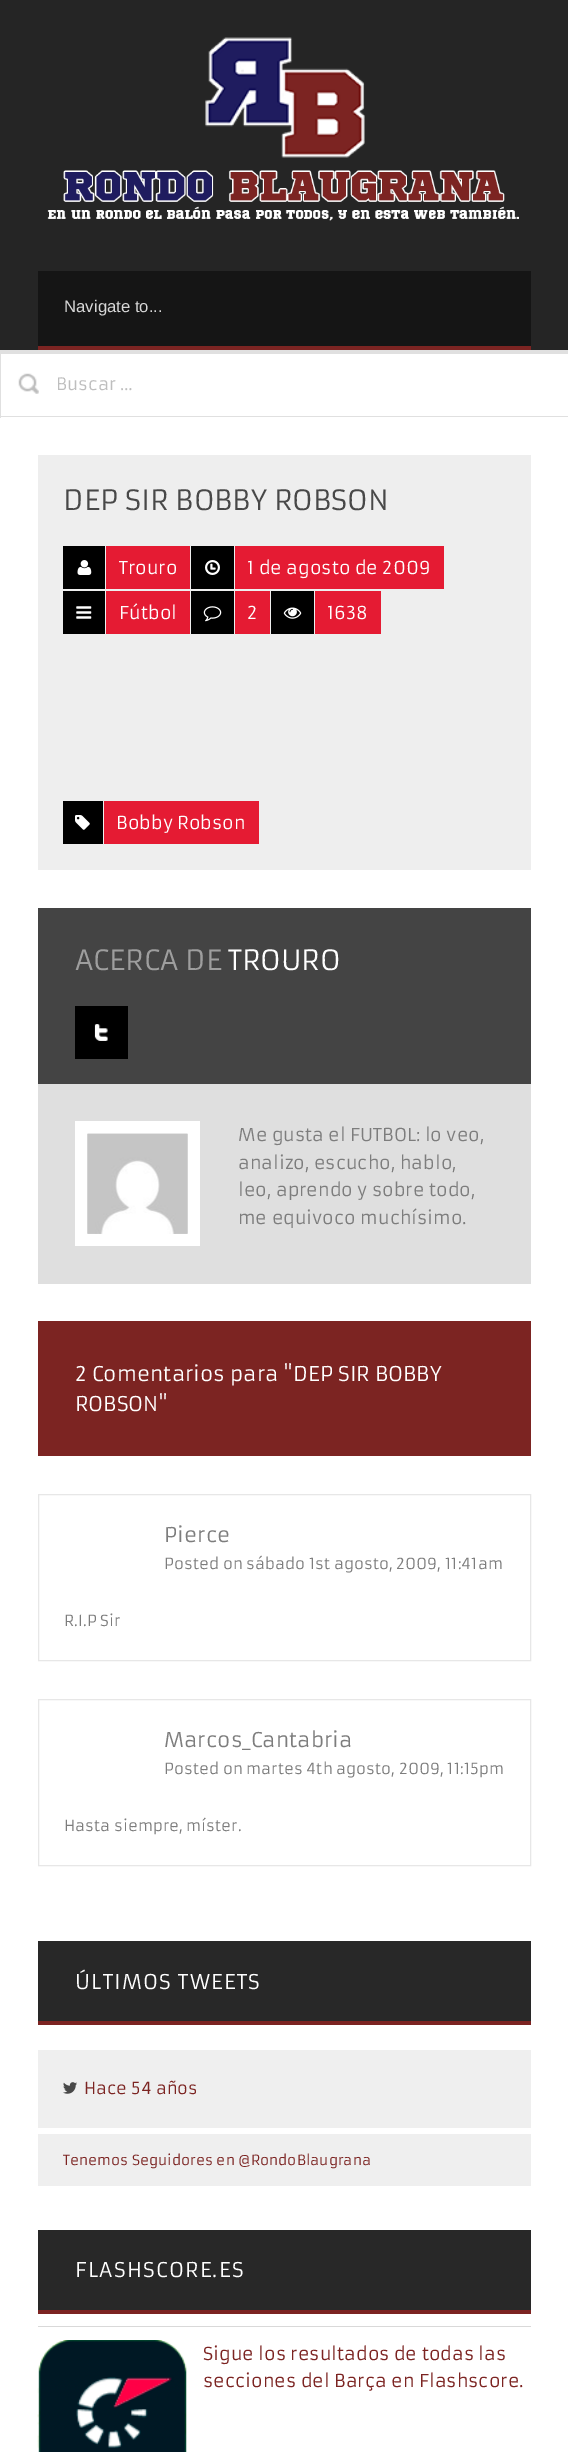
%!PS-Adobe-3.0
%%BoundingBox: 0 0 568 2452
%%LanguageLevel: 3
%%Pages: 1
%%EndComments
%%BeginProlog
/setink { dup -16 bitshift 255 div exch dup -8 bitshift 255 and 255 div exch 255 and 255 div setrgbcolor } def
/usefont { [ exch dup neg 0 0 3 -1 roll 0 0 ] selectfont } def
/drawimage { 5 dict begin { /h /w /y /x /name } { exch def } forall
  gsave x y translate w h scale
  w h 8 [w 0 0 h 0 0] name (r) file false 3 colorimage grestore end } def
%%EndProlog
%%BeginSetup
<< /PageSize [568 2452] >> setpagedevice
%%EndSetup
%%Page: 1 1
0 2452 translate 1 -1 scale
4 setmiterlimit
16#FFFFFF setink
0 0 568 2452 rectfill
16#252525 setink
0 0 568 350 rectfill
(img1.raw) 205 37 160 121 drawimage
(img2.raw) 47 170 472 51 drawimage
16#151515 setink
38 271 493 75 rectfill
16#7C2422 setink
38 346 493 4 rectfill
/LiberationSans-Regular 16.75 usefont
16#D7D7D7 setink
64 312 moveto (Navigate to...) show
[
    [0 350 568 4 16#E0E0E0]
    [0 416 568 1 16#E0E0E0]
    [0 350 1 68 16#E0E0E0]
] { aload pop setink rectfill } forall
(img3.raw) 18 373 21 21 drawimage
/Armata-Regular 16.75 usefont
16#BEBEBE setink
56 390 moveto (Buscar …) show
16#EEEEEE setink
38 455 493 415 rectfill
/Armata-Regular 27.5 usefont
16#484848 setink
63 510 moveto (DEP SIR BOBBY ROBSON) show
16#000000 setink
63 546 42 43 rectfill
(img4.raw) 77 560 15 15 drawimage
16#E51B33 setink
106 546 84 43 rectfill
/Armata-Regular 17.5 usefont
16#FFFFFF setink
119 574 moveto (Trouro) show
16#000000 setink
191 546 43 43 rectfill
(img5.raw) 205 560 15 15 drawimage
16#E51B33 setink
235 546 209 43 rectfill
16#FFFFFF setink
247 574 moveto (1 de agosto de 2009) show
16#000000 setink
63 591 42 43 rectfill
(img6.raw) 76 606 16 13 drawimage
16#E51B33 setink
106 591 84 43 rectfill
16#FFFFFF setink
119 619 moveto (Fútbol) show
16#000000 setink
191 591 43 43 rectfill
(img7.raw) 203 606 19 16 drawimage
16#E51B33 setink
235 591 35 43 rectfill
16#FFFFFF setink
247 619 moveto (2) show
16#000000 setink
271 591 43 43 rectfill
(img8.raw) 283 607 19 12 drawimage
16#E51B33 setink
315 591 66 43 rectfill
16#FFFFFF setink
327 619 moveto (1638) show
16#000000 setink
63 801 40 43 rectfill
(img9.raw) 75 815 15 15 drawimage
16#E51B33 setink
104 801 155 43 rectfill
16#FFFFFF setink
116 829 moveto (Bobby Robson) show
16#DFDFDF setink
38 1084 493 200 rectfill
16#444444 setink
38 908 493 176 rectfill
/Armata-Regular 27.5 usefont
16#9E9E9E setink
75 970 moveto (ACERCA DE) show
16#FFFFFF setink
228 970 moveto (TROURO) show
16#000000 setink
75 1006 53 53 rectfill
(img10.raw) 94 1024 14 17 drawimage
16#FFFFFF setink
75 1121 125 125 rectfill
(img11.raw) 87 1133 101 101 drawimage
(img12.raw) 87 1133 101 101 drawimage
/Armata-Regular 17.5 usefont
16#7D7D7D setink
[
    [(Me gusta el FUTBOL: lo veo,) 238 1141]
    [(analizo, escucho, hablo,) 238 1169]
    [(leo, aprendo y sobre todo,) 238 1196]
    [(me equivoco muchísimo.) 238 1224]
] { aload pop moveto show } forall
16#7C2422 setink
38 1321 493 135 rectfill
/Armata-Regular 20 usefont
16#FFFFFF setink
75 1381 moveto (2 Comentarios para "DEP SIR BOBBY) show
75 1411 moveto (ROBSON") show
16#E7E7E7 setink
38.5 1494.5 492 166 rectstroke
16#7D7D7D setink
164 1542 moveto (Pierce) show
/Armata-Regular 15 usefont
164 1569 moveto (Posted on sábado 1st agosto, 2009, 11:41am) show
64 1626 moveto (R.I.P Sir) show
16#E7E7E7 setink
38.5 1699.5 492 166 rectstroke
/Armata-Regular 20 usefont
16#7D7D7D setink
164 1747 moveto (Marcos_Cantabria) show
/Armata-Regular 15 usefont
164 1774 moveto (Posted on martes 4th agosto, 2009, 11:15pm) show
64 1831 moveto (Hasta siempre, míster.) show
16#282828 setink
38 1941 493 80 rectfill
16#7C2422 setink
38 2021 493 4 rectfill
/Armata-Regular 20 usefont
16#FFFFFF setink
75 1989 moveto 1.25 0 (ÚLTIMOS TWEETS) ashow
16#EFEFEF setink
38 2050 493 78 rectfill
(img13.raw) 63 2082 14 12 drawimage
/Armata-Regular 16.25 usefont
16#7C2422 setink
84 2094 moveto (Hace 54 años) show
16#EFEFEF setink
38 2134 493 52 rectfill
/Armata-Regular 13.75 usefont
16#7C2422 setink
63 2165 moveto (Tenemos Seguidores en @RondoBlaugrana) show
16#282828 setink
38 2230 493 80 rectfill
16#7C2422 setink
38 2310 493 4 rectfill
/Armata-Regular 20 usefont
16#FFFFFF setink
75 2277 moveto 1.25 0 (FLASHSCORE.ES) ashow
16#D9D9D9 setink
38 2326 493 1 rectfill
(img14.raw) 37 2340 150 112 drawimage
/Armata-Regular 17.5 usefont
16#7C2422 setink
203 2360 moveto (Sigue los resultados de todas las) show
203 2387 moveto (secciones del Barça en Flashscore.) show
showpage
%%EOF
